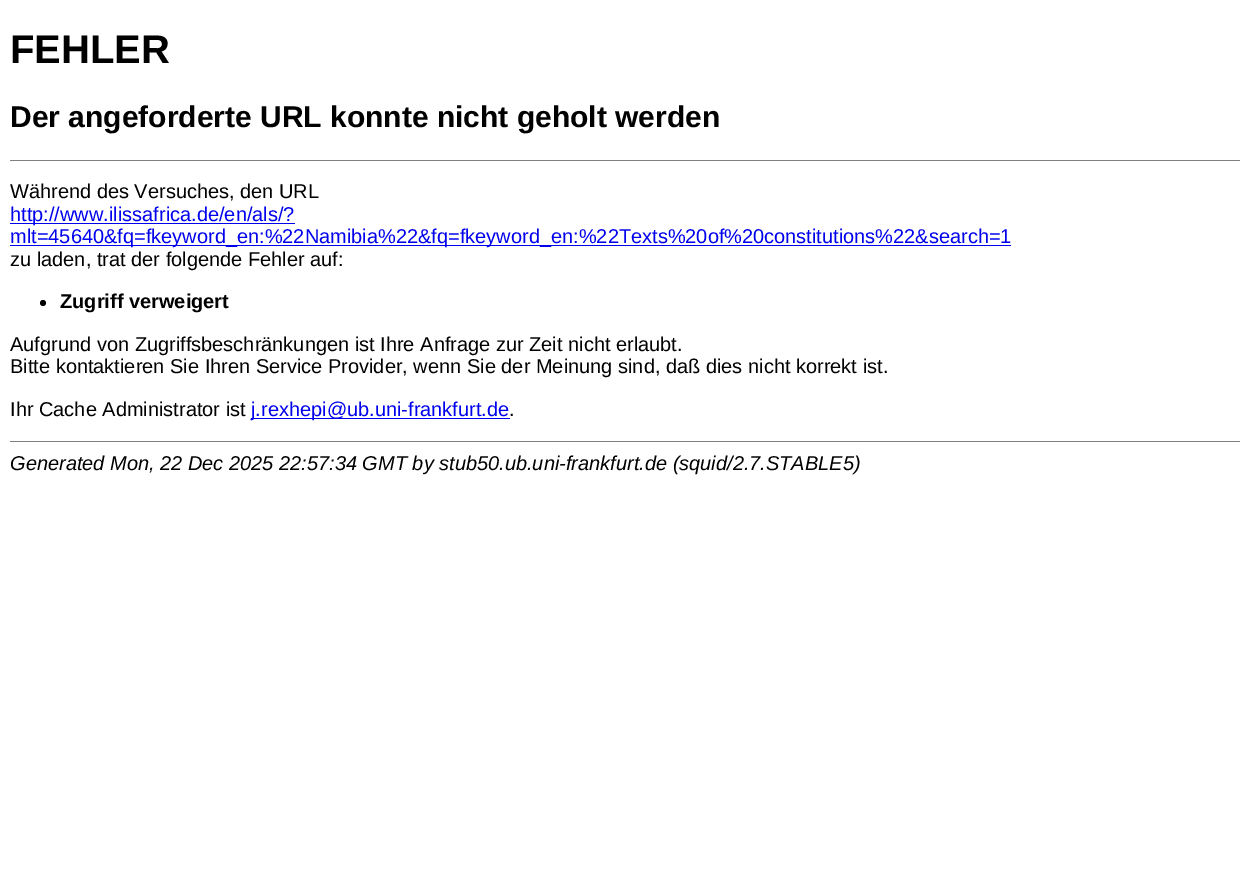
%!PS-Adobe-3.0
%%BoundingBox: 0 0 1250 878
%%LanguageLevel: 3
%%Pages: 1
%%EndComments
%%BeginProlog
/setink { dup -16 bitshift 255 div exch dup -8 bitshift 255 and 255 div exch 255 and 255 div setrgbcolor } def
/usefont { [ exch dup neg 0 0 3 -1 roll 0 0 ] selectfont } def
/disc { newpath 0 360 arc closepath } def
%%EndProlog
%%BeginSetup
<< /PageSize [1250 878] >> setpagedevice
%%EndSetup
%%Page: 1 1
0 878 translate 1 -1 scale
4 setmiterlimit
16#FFFFFF setink
0 0 1250 878 rectfill
/LiberationSans-Bold 40 usefont
16#000000 setink
10 63 moveto (FEHLER) show
/LiberationSans-Bold 30 usefont
10 127 moveto (Der angeforderte URL konnte nicht geholt werden) show
16#808080 setink
10 160 1230 1 rectfill
/LiberationSans-Regular 20 usefont
16#000000 setink
10 198 moveto (Während des Versuches, den URL) show
16#0000EE setink
10 223 285 1 rectfill
10 221 moveto (http://www.ilissafrica.de/en/als/?) show
10 245 1001 1 rectfill
10 243 moveto (mlt=45640&fq=fkeyword_en:%22Namibia%22&fq=fkeyword_en:%22Texts%20of%20constitutions%22&search=1) show
16#000000 setink
10 266 moveto (zu laden, trat der folgende Fehler auf:) show
43 303 3 disc fill
/LiberationSans-Bold 20 usefont
60 308 moveto (Zugriff verweigert) show
/LiberationSans-Regular 20 usefont
[
    [(Aufgrund von Zugriffsbeschränkungen ist Ihre Anfrage zur Zeit nicht erlaubt.) 10 351]
    [(Bitte kontaktieren Sie Ihren Service Provider, wenn Sie der Meinung sind, daß dies nicht korrekt ist.) 10 373]
    [(Ihr Cache Administrator ist) 10 416]
] { aload pop moveto show } forall
16#0000EE setink
251 418 259 1 rectfill
251 416 moveto (j.rexhepi@ub.uni-frankfurt.de) show
16#000000 setink
509 416 moveto (.) show
16#808080 setink
10 441 1230 1 rectfill
/LiberationSans-Italic 20 usefont
16#000000 setink
10 470 moveto (Generated Mon, 22 Dec 2025 22:57:34 GMT by stub50.ub.uni-frankfurt.de \(squid/2.7.STABLE5\)) show
showpage
%%EOF
